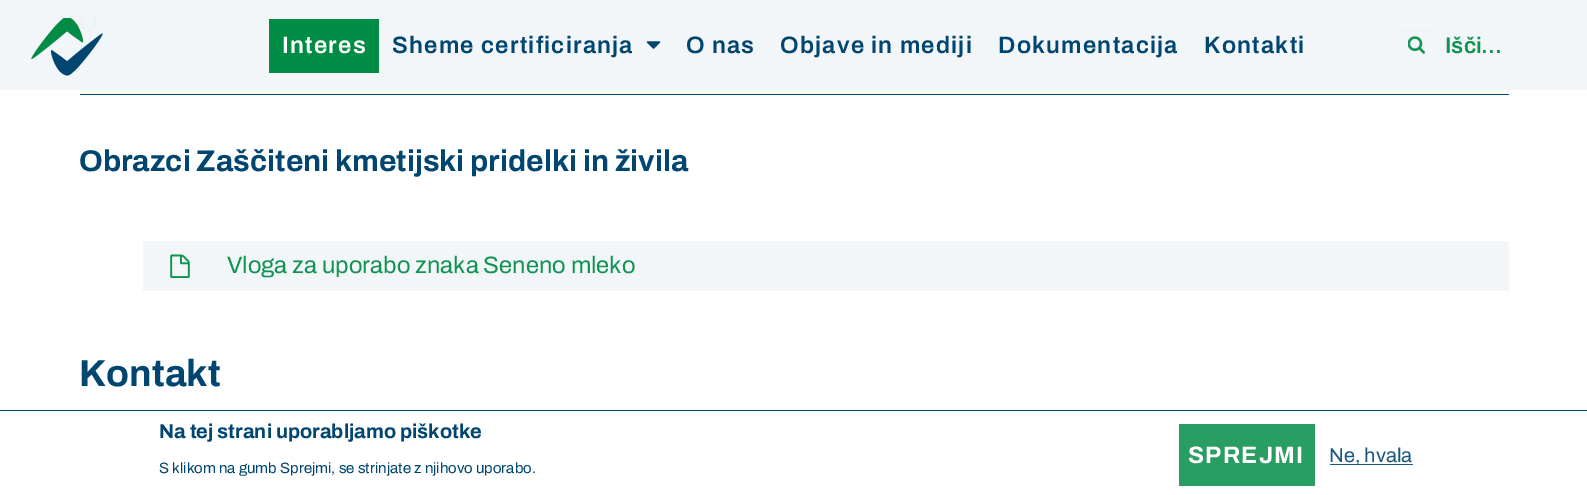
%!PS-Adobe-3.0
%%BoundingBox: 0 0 1587 495
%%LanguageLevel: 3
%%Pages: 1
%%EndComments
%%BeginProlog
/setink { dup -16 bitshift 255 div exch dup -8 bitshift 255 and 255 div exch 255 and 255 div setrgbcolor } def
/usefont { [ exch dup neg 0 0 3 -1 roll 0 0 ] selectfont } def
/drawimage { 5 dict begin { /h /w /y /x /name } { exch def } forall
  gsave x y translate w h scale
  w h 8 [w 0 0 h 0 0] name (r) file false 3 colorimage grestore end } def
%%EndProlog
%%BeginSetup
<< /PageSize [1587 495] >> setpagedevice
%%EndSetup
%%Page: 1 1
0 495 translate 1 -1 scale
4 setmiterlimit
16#FFFFFF setink
0 0 1587 495 rectfill
16#F2F6F9 setink
0 0 1587 90 rectfill
(img1.raw) 31 18 72 58 drawimage
16#008C44 setink
269 19 110 54 rectfill
/Archivo-SemiBold 23.75 usefont
16#FFFFFF setink
282 53 moveto 1.25 0 (Interes) ashow
16#014671 setink
392 53 moveto 1.25 0 (Sheme certificiranja) ashow
(img2.raw) 646 41 15 8 drawimage
686 53 moveto 1.25 0 (O nas) ashow
780 53 moveto 1.25 0 (Objave in mediji) ashow
998 53 moveto 1.25 0 (Dokumentacija) ashow
1204 53 moveto 1.25 0 (Kontakti) ashow
(img3.raw) 1408 36 17 18 drawimage
16#F8FAFC setink
1398 25 37 1 rectfill
/Archivo-SemiBold 22.5 usefont
16#119351 setink
1445 53 moveto (Išči...) show
16#014671 setink
80 94 1429 1 rectfill
/Archivo-Bold 30 usefont
79 171 moveto (Obrazci Zaščiteni kmetijski pridelki in živila) show
16#F2F6F8 setink
143 241 1366 50 rectfill
(img4.raw) 170 254 20 24 drawimage
/Archivo-Regular 23.75 usefont
16#119351 setink
227 273 moveto (Vloga za uporabo znaka Seneno mleko) show
/Archivo-Bold 37.5 usefont
16#014671 setink
79 386 moveto (Kontakt) show
0 410 1587 1 rectfill
/Archivo-Bold 20 usefont
159 438 moveto (Na tej strani uporabljamo piškotke) show
/Archivo-Regular 15 usefont
159 473 moveto (S klikom na gumb Sprejmi, se strinjate z njihovo uporabo.) show
16#299E62 setink
1179 424 136 62 rectfill
/Archivo-Bold 23.75 usefont
16#FFFFFF setink
1188 463 moveto 1.25 0 (SPREJMI) ashow
16#1A597F setink
1330 464 83 1 rectfill
/Archivo-Regular 20 usefont
1329 462 moveto (Ne, hvala) show
showpage
%%EOF
